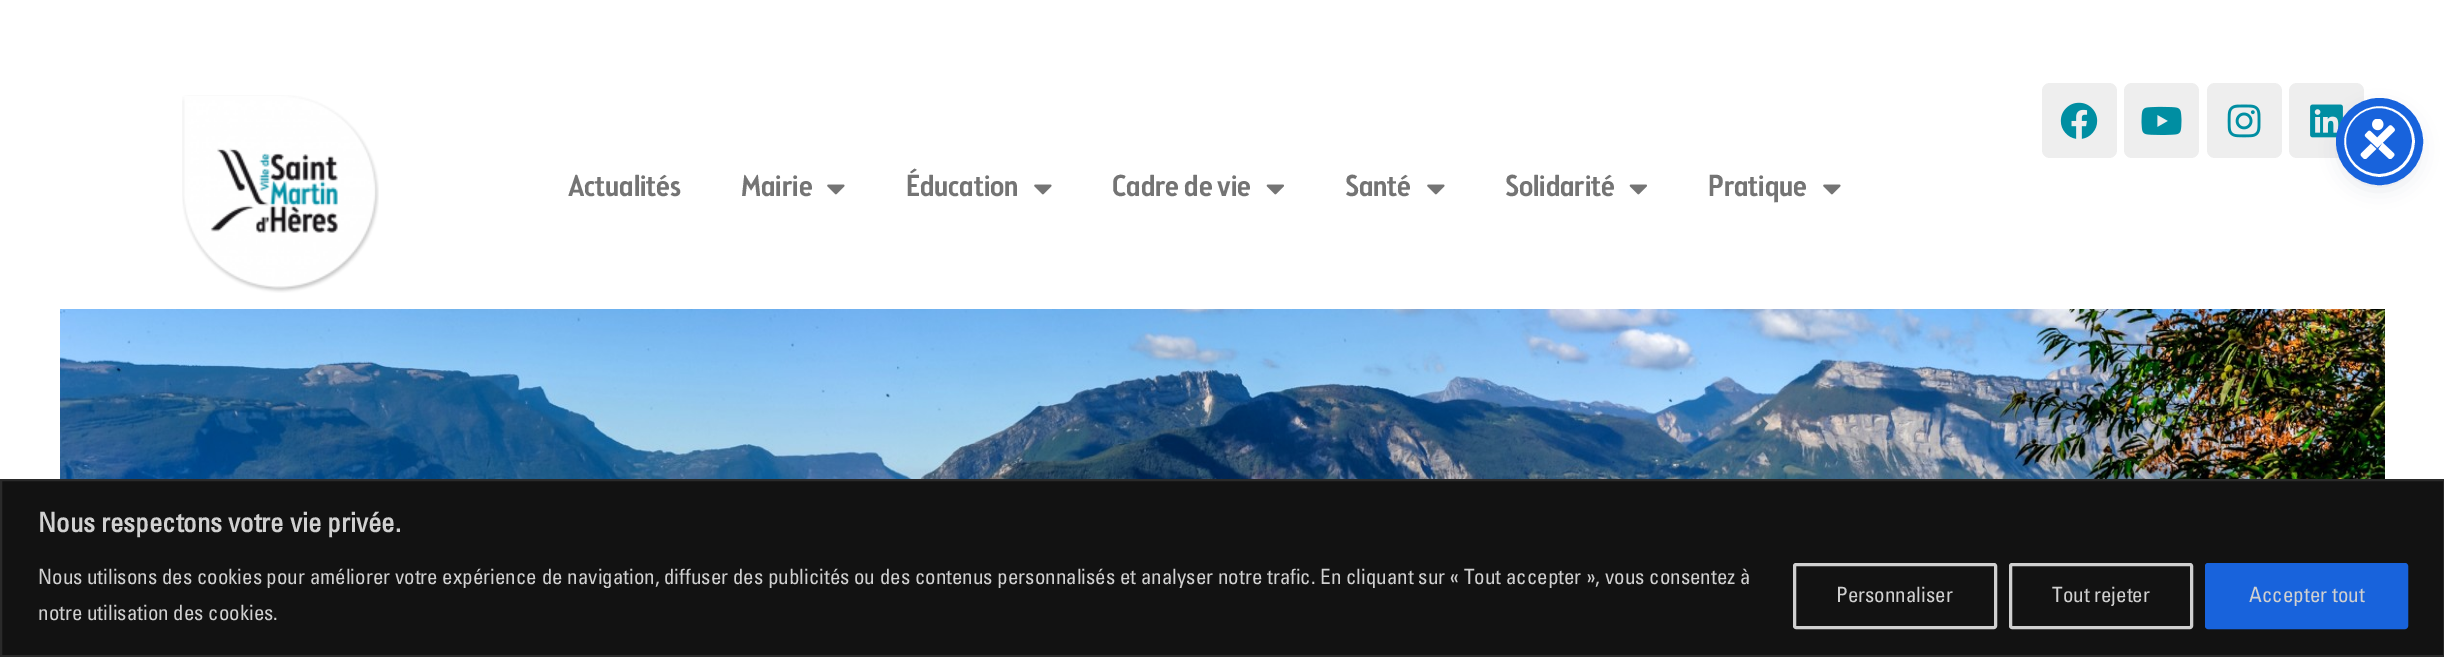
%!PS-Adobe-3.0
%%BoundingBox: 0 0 2444 657
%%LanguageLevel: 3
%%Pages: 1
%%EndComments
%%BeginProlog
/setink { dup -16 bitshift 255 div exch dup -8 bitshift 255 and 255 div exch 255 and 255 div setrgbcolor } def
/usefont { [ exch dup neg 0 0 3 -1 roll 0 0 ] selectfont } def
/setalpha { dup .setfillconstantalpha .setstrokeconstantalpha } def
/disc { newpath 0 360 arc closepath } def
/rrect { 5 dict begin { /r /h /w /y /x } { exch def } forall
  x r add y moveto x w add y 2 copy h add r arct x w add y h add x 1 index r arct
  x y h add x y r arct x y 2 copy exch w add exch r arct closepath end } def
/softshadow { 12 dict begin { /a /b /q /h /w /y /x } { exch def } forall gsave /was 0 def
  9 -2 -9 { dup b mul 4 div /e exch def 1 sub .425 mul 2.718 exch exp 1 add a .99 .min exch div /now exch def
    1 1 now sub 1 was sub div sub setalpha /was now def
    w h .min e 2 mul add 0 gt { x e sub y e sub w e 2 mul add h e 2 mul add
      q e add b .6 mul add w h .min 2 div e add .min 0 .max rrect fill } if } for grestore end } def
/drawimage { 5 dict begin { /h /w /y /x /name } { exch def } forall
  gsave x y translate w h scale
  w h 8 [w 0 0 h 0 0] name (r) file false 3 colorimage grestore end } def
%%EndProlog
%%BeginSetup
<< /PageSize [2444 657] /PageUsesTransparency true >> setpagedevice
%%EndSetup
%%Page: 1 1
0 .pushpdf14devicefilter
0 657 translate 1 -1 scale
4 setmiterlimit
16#FFFFFF setink
0 0 2444 657 rectfill
(img1.raw) 182 95 197 198 drawimage
/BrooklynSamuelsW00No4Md-Medium 30 usefont
16#747474 setink
568 196 moveto (Actualités) show
741 196 moveto (Mairie) show
(img2.raw) 827 184 18 11 drawimage
906 196 moveto (Éducation) show
(img2.raw) 1034 184 18 11 drawimage
1112 196 moveto (Cadre de vie) show
(img3.raw) 1266 184 18 11 drawimage
1345 196 moveto (Santé) show
(img2.raw) 1427 184 18 11 drawimage
1505 196 moveto (Solidarité) show
(img3.raw) 1629 184 18 11 drawimage
1708 196 moveto (Pratique) show
(img2.raw) 1823 184 18 11 drawimage
16#EEEEEE setink
2042 83 75 75 8 rrect fill
(img4.raw) 2060 102 38 37 drawimage
2124 83 75 75 8 rrect fill
(img5.raw) 2141 106 41 29 drawimage
2207 83 75 75 8 rrect fill
(img6.raw) 2227 104 34 34 drawimage
2289 83 75 75 8 rrect fill
(img7.raw) 2310 104 33 34 drawimage
(img8.raw) 60 309 2325 170 drawimage
16#5D6494 setink
2343 108 72 72 36 3 0.2 softshadow
16#252C61 setink
2343 113 72 72 36 11 0.15 softshadow
16#1863DC setink
2379 141 34.5 disc gsave fill grestore
16#FFFFFF setink
3 setlinewidth
stroke
16#1863DC setink
8 setlinewidth
2379.5 141.5 39.5 disc stroke
(img9.raw) 2360 119 35 40 drawimage
16#121212 setink
1 480 moveto 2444 480 lineto 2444 656 lineto 1 656 lineto closepath gsave fill grestore
16#2A2A2A setink
2 setlinewidth
stroke
/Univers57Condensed-Bold 27 usefont
16#D0D0D0 setink
38 532 moveto (Nous respectons votre vie privée.) show
/Univers57Condensed-Regular 21 usefont
38 584 moveto (Nous utilisons des cookies pour améliorer votre expérience de navigation, diffuser des publicités ou des contenus personnalisés et analyser notre trafic. En cliquant sur « Tout accepter », vous consentez à) show
38 620 moveto (notre utilisation des cookies.) show
3 setlinewidth
1794.5 564.5 201 63 1.5 rrect stroke
1836 602 moveto (Personnaliser) show
2010.5 564.5 181 63 1.5 rrect stroke
2052 602 moveto (Tout rejeter) show
16#1863DC setink
2206.5 564.5 200 63 1.5 rrect gsave fill grestore
stroke
16#D0D0D0 setink
2249 602 moveto (Accepter tout) show
.poppdf14devicefilter showpage
%%EOF
